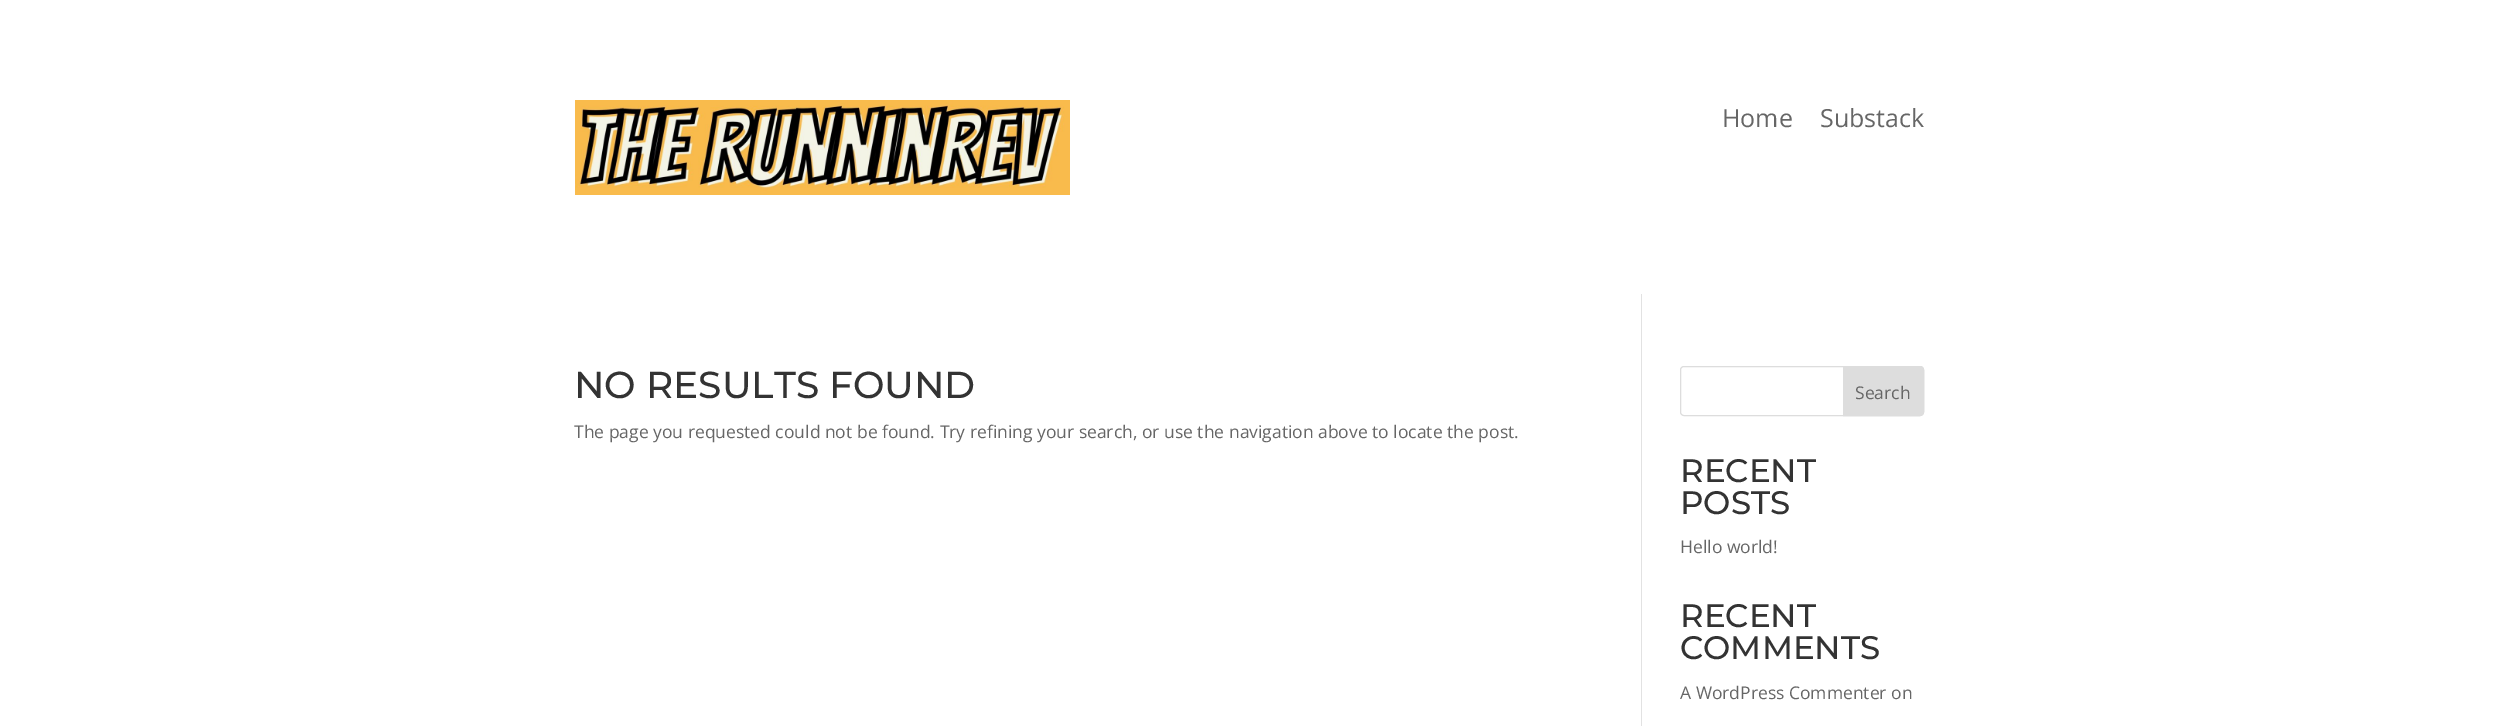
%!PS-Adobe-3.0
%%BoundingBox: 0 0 2498 726
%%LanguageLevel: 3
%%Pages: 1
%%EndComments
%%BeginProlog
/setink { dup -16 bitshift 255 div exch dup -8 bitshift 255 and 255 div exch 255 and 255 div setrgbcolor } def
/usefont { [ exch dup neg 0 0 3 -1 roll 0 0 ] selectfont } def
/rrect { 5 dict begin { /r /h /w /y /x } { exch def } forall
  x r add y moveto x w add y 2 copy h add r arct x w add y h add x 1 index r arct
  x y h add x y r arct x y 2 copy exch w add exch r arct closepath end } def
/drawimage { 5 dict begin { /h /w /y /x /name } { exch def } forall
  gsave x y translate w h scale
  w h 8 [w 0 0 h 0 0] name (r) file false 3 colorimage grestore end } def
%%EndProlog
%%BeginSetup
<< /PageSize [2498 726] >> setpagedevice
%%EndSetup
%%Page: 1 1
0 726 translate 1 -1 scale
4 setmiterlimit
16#FFFFFF setink
0 0 2498 726 rectfill
(img1.raw) 575 100 495 95 drawimage
/OpenSans-Regular 25 usefont
16#666666 setink
1722 127 moveto (Home) show
1820 127 moveto (Substack) show
16#E2E2E2 setink
1641 294 1 432 rectfill
/Montserrat-Medium 37.5 usefont
16#333333 setink
574 398 moveto (NO RESULTS FOUND) show
/OpenSans-Regular 17.5 usefont
16#666666 setink
574 438 moveto (The page you requested could not be found. Try refining your search, or use the navigation above to locate the post.) show
16#DDDDDD setink
1680.5 366.5 243 49 3.5 rrect stroke
1843.5 366.5 moveto 1920 366.5 lineto 1922 366.5 1923.5 368 1923.5 370 curveto 1923.5 412 lineto 1923.5 414 1922 415.5 1920 415.5 curveto 1843.5 415.5 lineto closepath gsave fill grestore
stroke
16#666666 setink
1855 399 moveto (Search) show
/Montserrat-Medium 32.5 usefont
16#333333 setink
1680 482 moveto (RECENT) show
1680 514 moveto (POSTS) show
/OpenSans-Regular 17.5 usefont
16#666666 setink
1680 553 moveto (Hello world!) show
/Montserrat-Medium 32.5 usefont
16#333333 setink
1680 627 moveto (RECENT) show
1680 659 moveto (COMMENTS) show
/OpenSans-Regular 17.5 usefont
16#666666 setink
1680 699 moveto (A WordPress Commenter on) show
showpage
%%EOF
